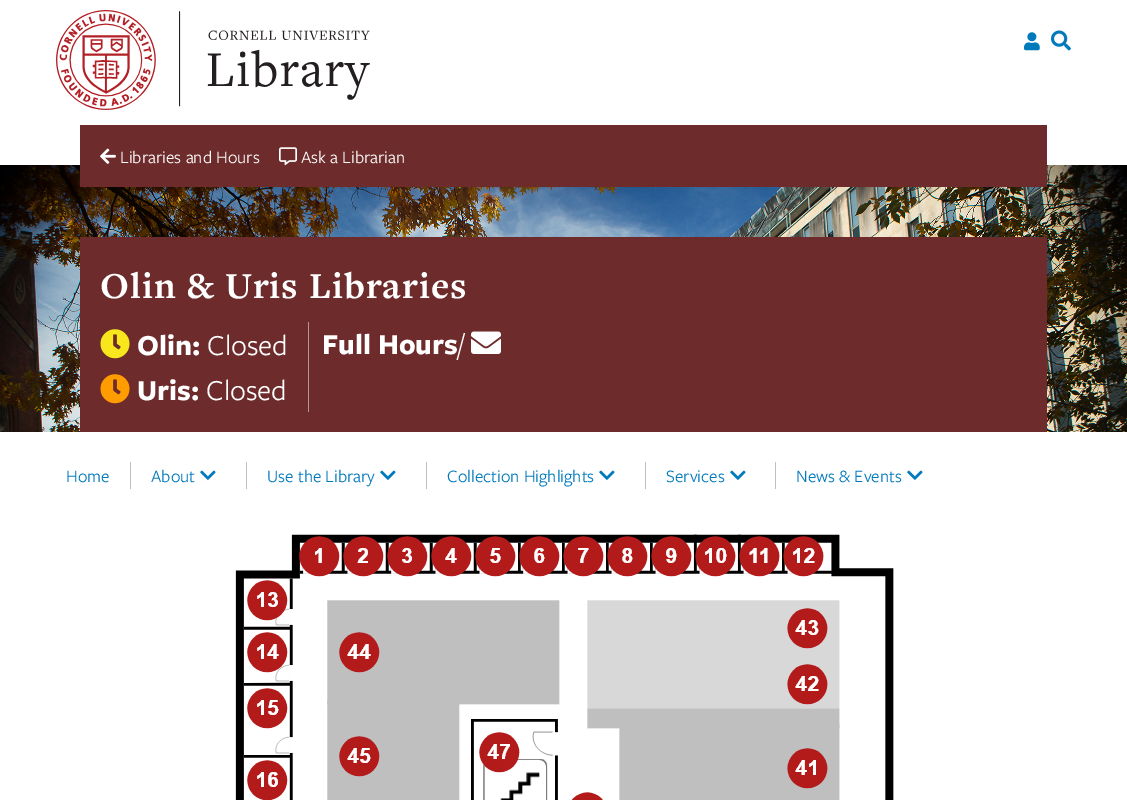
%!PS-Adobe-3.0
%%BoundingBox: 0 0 1127 800
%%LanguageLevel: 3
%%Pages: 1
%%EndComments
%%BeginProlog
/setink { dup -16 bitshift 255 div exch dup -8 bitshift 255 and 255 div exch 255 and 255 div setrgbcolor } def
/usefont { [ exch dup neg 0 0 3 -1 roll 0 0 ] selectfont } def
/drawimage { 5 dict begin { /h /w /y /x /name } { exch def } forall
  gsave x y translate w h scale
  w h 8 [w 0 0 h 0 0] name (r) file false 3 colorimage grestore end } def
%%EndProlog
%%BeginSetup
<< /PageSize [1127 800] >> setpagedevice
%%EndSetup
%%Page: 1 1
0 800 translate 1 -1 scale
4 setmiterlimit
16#FFFFFF setink
0 0 1127 800 rectfill
(img1.raw) 56 10 314 100 drawimage
(img2.raw) 1024 32 16 19 drawimage
(img3.raw) 1051 30 20 21 drawimage
(img4.raw) 0 165 1127 267 drawimage
16#6D2B2B setink
80 125 967 62 rectfill
(img5.raw) 100 148 16 16 drawimage
/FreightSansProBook-Regular 18 usefont
16#FFFFFF setink
120 163 moveto (Libraries and Hours) show
(img6.raw) 279 147 18 19 drawimage
301 163 moveto (Ask a Librarian) show
16#6D2B2B setink
80 237 967 195 rectfill
/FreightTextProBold-Bold 38 usefont
16#FFFFFF setink
100 298 moveto 1 0 (Olin & Uris Libraries) ashow
16#B69595 setink
308 322 1 90 rectfill
(img7.raw) 100 329 30 30 drawimage
/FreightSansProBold-Bold 30 usefont
16#FFFFFF setink
137 355 moveto (Olin:) show
/FreightSansProBook-Regular 30 usefont
207 355 moveto (Closed) show
(img8.raw) 100 374 30 30 drawimage
/FreightSansProBold-Bold 30 usefont
137 400 moveto (Uris:) show
/FreightSansProBook-Regular 30 usefont
206 400 moveto (Closed) show
/FreightSansProBold-Bold 30 usefont
322 354 moveto (Full Hours) show
/FreightSansProBook-Regular 30 usefont
458 354 moveto (/) show
(img9.raw) 471 331 30 23 drawimage
16#C1BEBE setink
130 462 1 27 rectfill
/FreightSansProBook-Regular 18 usefont
16#017ABC setink
66 482 moveto (Home) show
16#C1BEBE setink
246 462 1 27 rectfill
16#017ABC setink
151 482 moveto (About) show
(img10.raw) 200 470 16 10 drawimage
16#C1BEBE setink
426 462 1 27 rectfill
16#017ABC setink
267 482 moveto (Use the Library) show
(img10.raw) 380 470 16 10 drawimage
16#C1BEBE setink
645 462 1 27 rectfill
16#017ABC setink
447 482 moveto (Collection Highlights) show
(img10.raw) 599 470 16 10 drawimage
16#C1BEBE setink
775 462 1 27 rectfill
16#017ABC setink
666 482 moveto (Services) show
(img10.raw) 730 470 16 10 drawimage
796 482 moveto (News & Events) show
(img10.raw) 907 470 16 10 drawimage
(img11.raw) 235 534 659 266 drawimage
showpage
%%EOF
